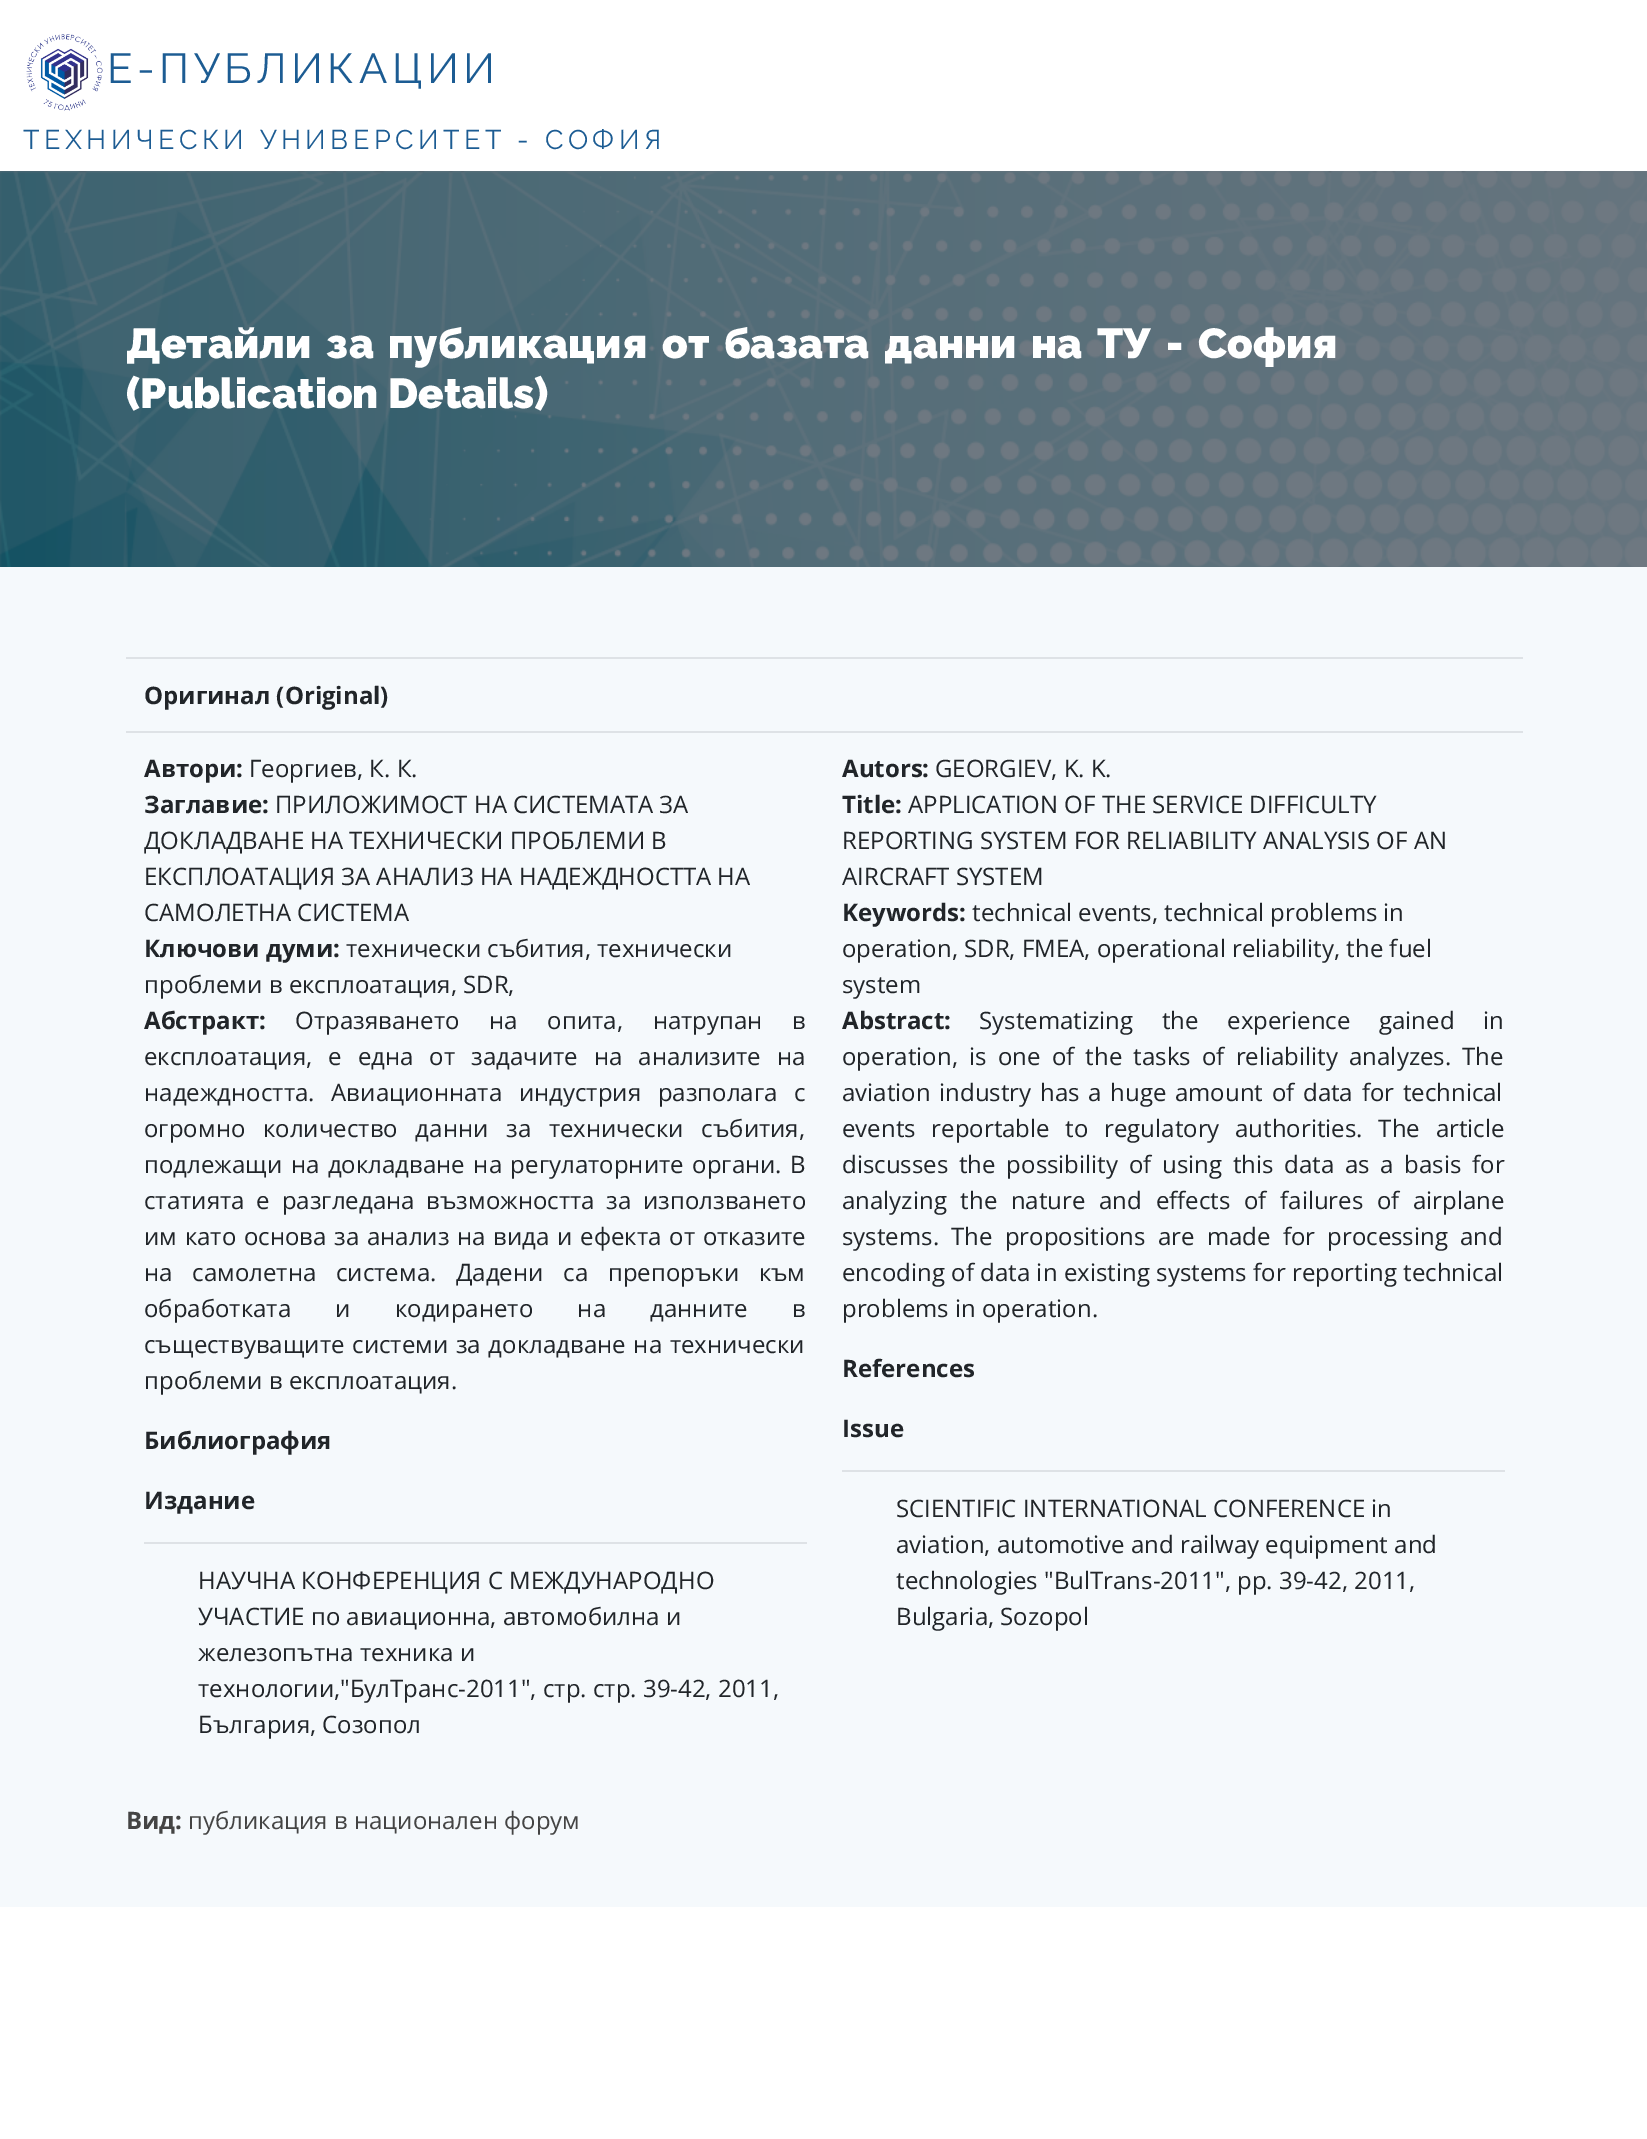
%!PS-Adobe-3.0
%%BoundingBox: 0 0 1647 2139
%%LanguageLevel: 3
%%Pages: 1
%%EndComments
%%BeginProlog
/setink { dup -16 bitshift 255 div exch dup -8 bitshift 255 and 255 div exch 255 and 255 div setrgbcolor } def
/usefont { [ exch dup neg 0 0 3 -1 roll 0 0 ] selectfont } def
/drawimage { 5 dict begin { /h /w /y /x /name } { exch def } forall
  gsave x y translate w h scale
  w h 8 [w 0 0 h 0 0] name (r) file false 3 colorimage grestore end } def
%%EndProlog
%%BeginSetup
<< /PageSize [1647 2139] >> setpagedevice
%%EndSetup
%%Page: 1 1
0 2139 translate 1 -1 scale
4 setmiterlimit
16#FFFFFF setink
0 0 1647 2139 rectfill
(img1.raw) 26 34 77 77 drawimage
/Raleway-Regular 42 usefont
16#1C5C93 setink
107 83 moveto 4.5 0 (Е-ПУБЛИКАЦИИ) ashow
/Raleway-Regular 27 usefont
23 149 moveto 4.5 0 (ТЕХНИЧЕСКИ УНИВЕРСИТЕТ - СОФИЯ) ashow
(img2.raw) 0 171 1647 396 drawimage
/Raleway-Black 42 usefont
16#FFFFFF setink
126 358 moveto 5.25 0 32 (Детайли за публикация от базата данни на ТУ - София) widthshow
126 408 moveto (\(Publication Details\)) show
16#F5F9FC setink
0 567 1647 1340 rectfill
16#DEE2E6 setink
126 657 1397 2 rectfill
/OpenSans-Bold 24 usefont
16#212529 setink
144 704 moveto (Оригинал \(Original\)) show
144 777 moveto (Автори:) show
/OpenSans-Regular 24 usefont
249 777 moveto (Георгиев, К. К.) show
/OpenSans-Bold 24 usefont
144 813 moveto (Заглавие:) show
/OpenSans-Regular 24 usefont
[
    [(ПРИЛОЖИМОСТ НА СИСТЕМАТА ЗА) 275 813]
    [(ДОКЛАДВАНЕ НА ТЕХНИЧЕСКИ ПРОБЛЕМИ В) 144 849]
    [(ЕКСПЛОАТАЦИЯ ЗА АНАЛИЗ НА НАДЕЖДНОСТТА НА) 144 885]
    [(САМОЛЕТНА СИСТЕМА) 144 921]
] { aload pop moveto show } forall
/OpenSans-Bold 24 usefont
144 957 moveto (Ключови думи:) show
/OpenSans-Regular 24 usefont
346 957 moveto (технически събития, технически) show
144 993 moveto (проблеми в експлоатация, SDR,) show
/OpenSans-Bold 24 usefont
144 1029 moveto (Абстракт:) show
/OpenSans-Regular 24 usefont
295 1029 moveto 23.5 0 32 (Отразяването на опита, натрупан в) widthshow
144 1065 moveto 9.75 0 32 (експлоатация, е една от задачите на анализите на) widthshow
144 1101 moveto 10.5 0 32 (надеждността. Авиационната индустрия разполага с) widthshow
144 1137 moveto 11.5 0 32 (огромно количество данни за технически събития,) widthshow
144 1173 moveto 2.25 0 32 (подлежащи на докладване на регулаторните органи. В) widthshow
144 1209 moveto 5.5 0 32 (статията е разгледана възможността за използването) widthshow
144 1245 moveto 1.5 0 32 (им като основа за анализ на вида и ефекта от отказите) widthshow
144 1281 moveto 13.5 0 32 (на самолетна система. Дадени са препоръки към) widthshow
144 1317 moveto 38 0 32 (обработката и кодирането на данните в) widthshow
144 1353 moveto 1.5 0 32 (съществуващите системи за докладване на технически) widthshow
144 1389 moveto (проблеми в експлоатация.) show
/OpenSans-Bold 24 usefont
144 1449 moveto (Библиография) show
144 1509 moveto (Издание) show
16#DEE2E6 setink
144 1542 663 2 rectfill
/OpenSans-Regular 24 usefont
16#212529 setink
[
    [(НАУЧНА КОНФЕРЕНЦИЯ С МЕЖДУНАРОДНО) 198 1589]
    [(УЧАСТИЕ по авиационна, автомобилна и) 198 1625]
    [(железопътна техника и) 198 1661]
    [(технологии,"БулТранс-2011", стр. стр. 39-42, 2011,) 198 1697]
    [(България, Созопол) 198 1733]
] { aload pop moveto show } forall
16#DEE2E6 setink
126 731 1397 2 rectfill
/OpenSans-Bold 24 usefont
16#212529 setink
842 777 moveto (Autors:) show
/OpenSans-Regular 24 usefont
935 777 moveto (GEORGIEV, K. K.) show
/OpenSans-Bold 24 usefont
842 813 moveto (Title:) show
/OpenSans-Regular 24 usefont
[
    [(APPLICATION OF THE SERVICE DIFFICULTY) 908 813]
    [(REPORTING SYSTEM FOR RELIABILITY ANALYSIS OF AN) 842 849]
    [(AIRCRAFT SYSTEM) 842 885]
] { aload pop moveto show } forall
/OpenSans-Bold 24 usefont
842 921 moveto (Keywords:) show
/OpenSans-Regular 24 usefont
[
    [(technical events, technical problems in) 972 921]
    [(operation, SDR, FMEA, operational reliability, the fuel) 842 957]
    [(system) 842 993]
] { aload pop moveto show } forall
/OpenSans-Bold 24 usefont
842 1029 moveto (Abstract:) show
/OpenSans-Regular 24 usefont
979 1029 moveto 22.5 0 32 (Systematizing the experience gained in) widthshow
842 1065 moveto 5 0 32 (operation, is one of the tasks of reliability analyzes. The) widthshow
842 1101 moveto 2.5 0 32 (aviation industry has a huge amount of data for technical) widthshow
842 1137 moveto 9.5 0 32 (events reportable to regulatory authorities. The article) widthshow
842 1173 moveto 4.5 0 32 (discusses the possibility of using this data as a basis for) widthshow
842 1209 moveto 7.5 0 32 (analyzing the nature and effects of failures of airplane) widthshow
842 1245 moveto 6 0 32 (systems. The propositions are made for processing and) widthshow
842 1281 moveto 0.25 0 32 (encoding of data in existing systems for reporting technical) widthshow
842 1317 moveto (problems in operation.) show
/OpenSans-Bold 24 usefont
842 1377 moveto (References) show
842 1437 moveto (Issue) show
16#DEE2E6 setink
842 1470 663 2 rectfill
/OpenSans-Regular 24 usefont
16#212529 setink
[
    [(SCIENTIFIC INTERNATIONAL CONFERENCE in) 896 1517]
    [(aviation, automotive and railway equipment and) 896 1553]
    [(technologies "BulTrans-2011", pp. 39-42, 2011,) 896 1589]
    [(Bulgaria, Sozopol) 896 1625]
] { aload pop moveto show } forall
/OpenSans-Bold 24 usefont
16#444444 setink
126 1829 moveto (Вид:) show
/OpenSans-Regular 24 usefont
188 1829 moveto (публикация в национален форум) show
showpage
%%EOF
